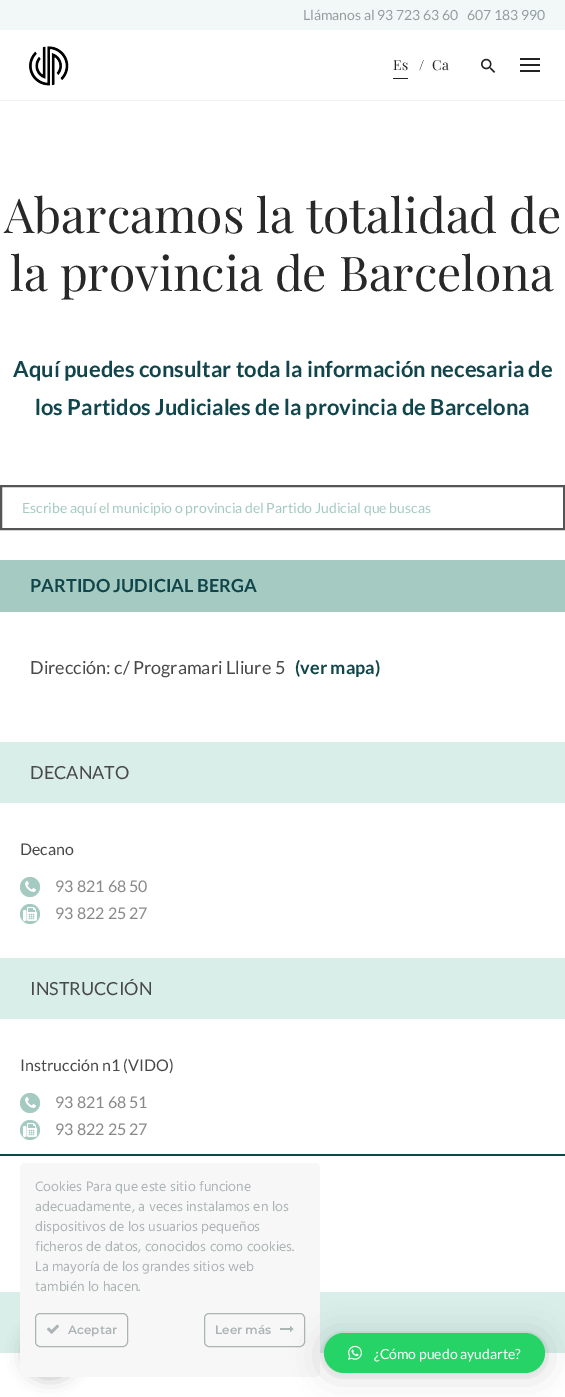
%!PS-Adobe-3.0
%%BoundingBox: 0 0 565 1397
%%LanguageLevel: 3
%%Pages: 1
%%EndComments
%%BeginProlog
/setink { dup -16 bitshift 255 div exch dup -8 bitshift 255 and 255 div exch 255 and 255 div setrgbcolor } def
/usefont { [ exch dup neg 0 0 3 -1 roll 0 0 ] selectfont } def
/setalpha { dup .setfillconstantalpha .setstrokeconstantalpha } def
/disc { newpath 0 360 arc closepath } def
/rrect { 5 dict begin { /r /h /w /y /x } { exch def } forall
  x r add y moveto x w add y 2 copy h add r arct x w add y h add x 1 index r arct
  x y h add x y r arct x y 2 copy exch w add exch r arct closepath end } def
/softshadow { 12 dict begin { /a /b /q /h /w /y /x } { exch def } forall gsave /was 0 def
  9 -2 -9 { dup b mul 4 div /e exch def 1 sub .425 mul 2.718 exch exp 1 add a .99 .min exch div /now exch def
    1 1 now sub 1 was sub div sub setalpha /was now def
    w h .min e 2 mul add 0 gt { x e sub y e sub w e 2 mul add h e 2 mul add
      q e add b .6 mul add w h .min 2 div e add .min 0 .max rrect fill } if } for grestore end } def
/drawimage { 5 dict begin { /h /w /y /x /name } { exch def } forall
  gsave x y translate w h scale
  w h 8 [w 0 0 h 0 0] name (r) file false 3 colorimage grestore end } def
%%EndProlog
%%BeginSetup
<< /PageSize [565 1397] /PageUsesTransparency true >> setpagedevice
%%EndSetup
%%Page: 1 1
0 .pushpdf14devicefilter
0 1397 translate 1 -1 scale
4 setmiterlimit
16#FFFFFF setink
0 0 565 1397 rectfill
16#F2F8F7 setink
0 0 565 30 rectfill
/Lato-Regular 14 usefont
16#949D9E setink
303 20 moveto (Llámanos al 93 723 63 60) show
467 20 moveto (607 183 990) show
16#F0F0F0 setink
0 100 565 1 rectfill
(img1.raw) 28 46 41 40 drawimage
/PlayfairDisplay-Regular 14 usefont
16#222222 setink
393 70 moveto (Es) show
393 78 15 1 rectfill
419 70 moveto (/) show
432 70 moveto (Ca) show
(img2.raw) 481 58 15 15 drawimage
[
    [520 58 20 2 16#222222]
    [520 70 20 2 16#222222]
    [520 64 20 2 16#222222]
] { aload pop setink rectfill } forall
/PlayfairDisplay-Regular 48 usefont
16#282828 setink
4 233 moveto (Abarcamos la totalidad de) show
10 291 moveto (la provincia de Barcelona) show
/Lato-Bold 22 usefont
16#10454B setink
13 377 moveto (Aquí puedes consultar toda la información necesaria de) show
35 415 moveto (los Partidos Judiciales de la provincia de Barcelona) show
16#555555 setink
2 setlinewidth
1 486 563 43 rectstroke
/Lato-Regular 14 usefont
16#A5CAC1 setink
22 513 moveto (Escribe aquí el municipio o provincia del Partido Judicial que buscas) show
0 560 565 52 rectfill
/Lato-Bold 18 usefont
16#10454B setink
30 592 moveto (PARTIDO JUDICIAL BERGA) show
/Lato-Regular 18 usefont
16#494949 setink
30 674 moveto (Dirección: c/ Programari Lliure 5) show
/Lato-Bold 18 usefont
16#10454B setink
295 674 moveto (\(ver mapa\)) show
16#D9EEE9 setink
0 742 565 61 rectfill
/Lato-Regular 18 usefont
16#494949 setink
30 779 moveto (DECANATO) show
/Lato-Regular 16 usefont
20 855 moveto (Decano) show
16#A5CAC1 setink
30 887 10 disc fill
(img3.raw) 25 881 11 11 drawimage
16#888888 setink
55 892 moveto (93 821 68 50) show
16#A5CAC1 setink
30 914 10 disc fill
(img4.raw) 23 907 14 14 drawimage
16#888888 setink
55 919 moveto (93 822 25 27) show
16#D9EEE9 setink
0 958 565 61 rectfill
/Lato-Regular 18 usefont
16#494949 setink
30 995 moveto (INSTRUCCIÓN) show
16#10454B setink
0 1154 565 2 rectfill
/Lato-Regular 16 usefont
16#494949 setink
20 1071 moveto (Instrucción n1 \(VIDO\)) show
16#A5CAC1 setink
30 1103 10 disc fill
(img3.raw) 25 1097 11 11 drawimage
16#888888 setink
55 1108 moveto (93 821 68 51) show
16#A5CAC1 setink
30 1130 10 disc fill
(img4.raw) 23 1123 14 14 drawimage
16#888888 setink
55 1135 moveto (93 822 25 27) show
16#D9EEE9 setink
0 1292 565 61 rectfill
16#000000 setink
25 1328 50 50 25 9 0.25 softshadow
16#F7F7F7 setink
20 1163 300 214 5 rrect fill
/Hind-Regular 14 usefont
16#ACB4B5 setink
[
    [(Cookies Para que este sitio funcione) 35 1191]
    [(adecuadamente, a veces instalamos en los) 35 1211]
    [(dispositivos de los usuarios pequeños) 35 1231]
    [(ficheros de datos, conocidos como cookies.) 35 1251]
    [(La mayoría de los grandes sitios web) 35 1271]
    [(también lo hacen.) 35 1291]
] { aload pop moveto show } forall
1 setlinewidth
35.5 1313.5 92 33 4.5 rrect stroke
(img5.raw) 47 1324 12 10 drawimage
/Montserrat-SemiBold 12 usefont
68 1334 moveto (Aceptar) show
204.5 1313.5 100 33 4.5 rrect stroke
215 1334 moveto (Leer más) show
(img6.raw) 280 1326 14 6 drawimage
16#000000 setink
324 1335 221 40 20 16 0.16 softshadow
324 1334 221 40 20 3 0.06 softshadow
16#25D366 setink
324 1333 221 40 20 rrect fill
(img7.raw) 348 1345 14 15 drawimage
/Lato-Regular 14 usefont
16#FFFFFF setink
374 1359 moveto (¿Cómo puedo ayudarte?) show
.poppdf14devicefilter showpage
%%EOF
